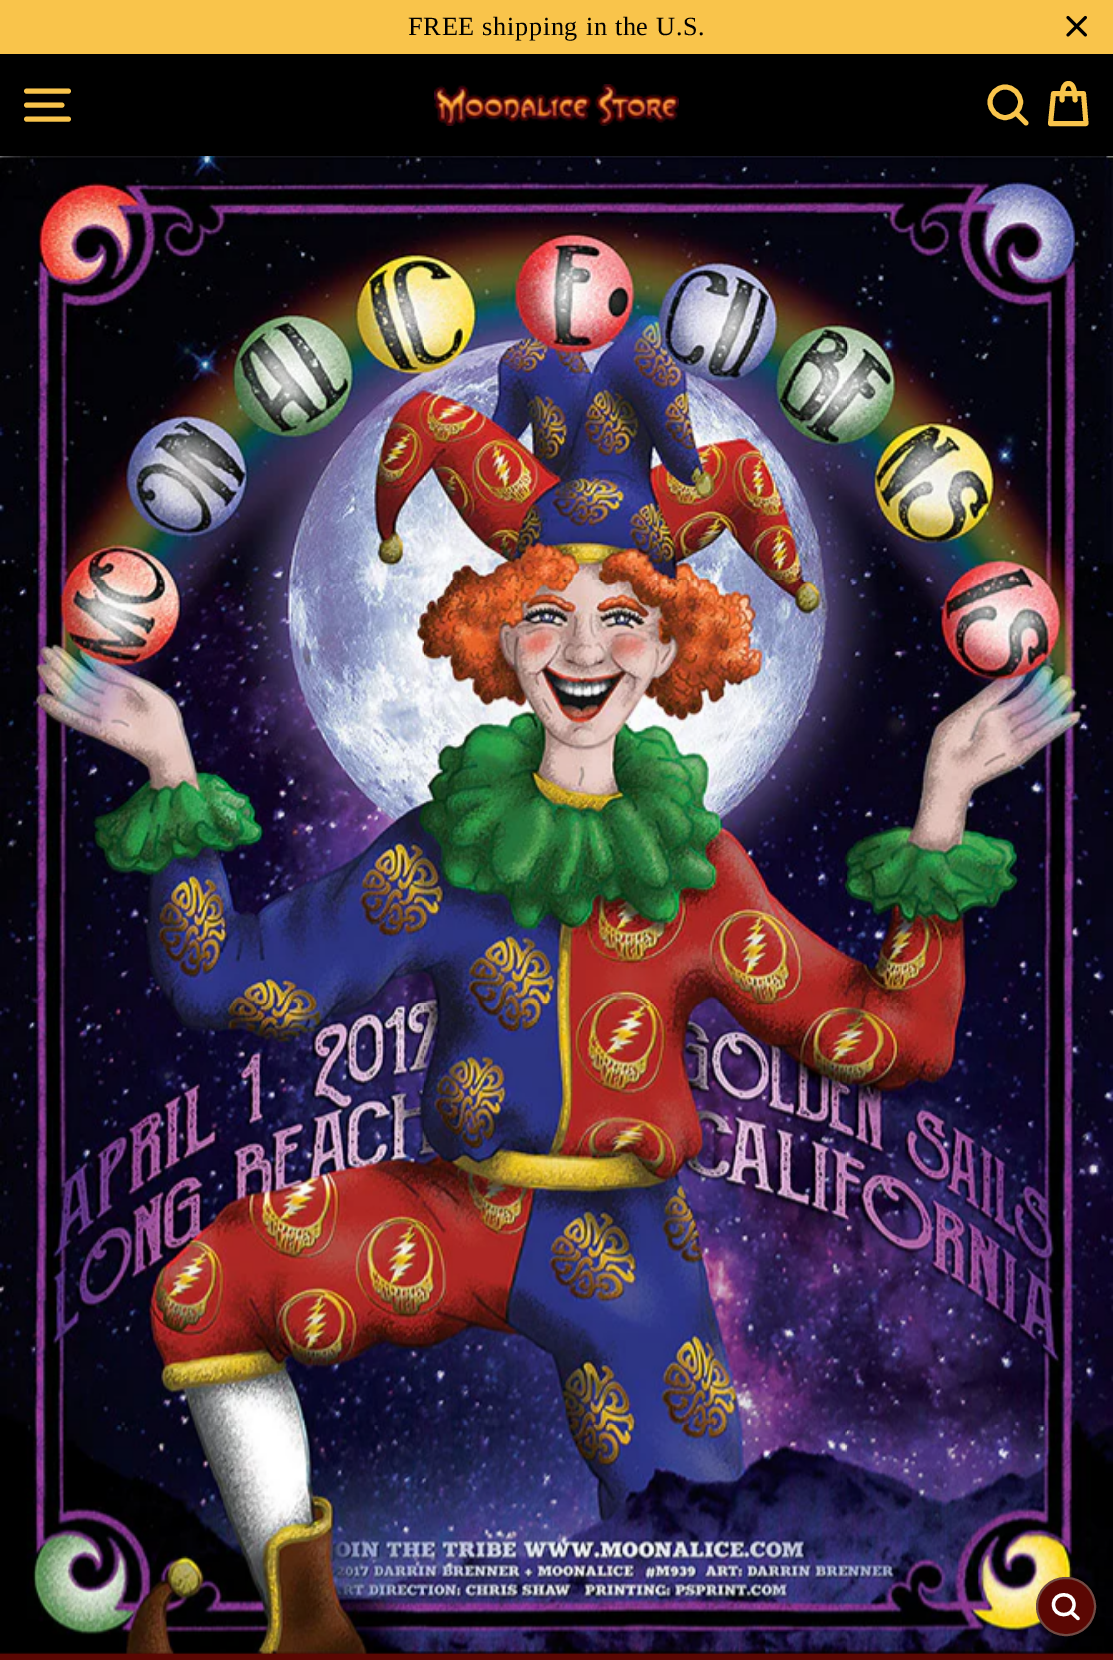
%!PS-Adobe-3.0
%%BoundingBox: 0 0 1113 1660
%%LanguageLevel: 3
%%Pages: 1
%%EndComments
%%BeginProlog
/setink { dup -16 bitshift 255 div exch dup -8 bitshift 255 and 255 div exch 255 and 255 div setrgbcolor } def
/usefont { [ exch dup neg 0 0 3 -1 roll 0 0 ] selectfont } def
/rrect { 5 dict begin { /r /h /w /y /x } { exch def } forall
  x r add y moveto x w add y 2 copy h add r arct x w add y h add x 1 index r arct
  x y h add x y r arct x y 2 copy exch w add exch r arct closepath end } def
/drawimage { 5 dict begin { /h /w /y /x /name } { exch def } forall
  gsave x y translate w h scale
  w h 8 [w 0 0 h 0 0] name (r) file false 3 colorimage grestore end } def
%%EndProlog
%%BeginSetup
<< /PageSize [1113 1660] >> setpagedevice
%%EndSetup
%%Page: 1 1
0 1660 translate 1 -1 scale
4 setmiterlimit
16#5B0703 setink
0 0 1113 1660 rectfill
16#F9C44B setink
0 0 1113 54 rectfill
/LiberationSerif-Regular 26.25 usefont
16#000000 setink
408 35 moveto 0.7 0 (FREE shipping in the U.S.) ashow
(img1.raw) 1066 15 21 22 drawimage
0 54 1113 102 rectfill
16#F9C44B setink
4.9 setlinewidth
1 setlinecap
1 setlinejoin
26.5 91 moveto 68.5 91 lineto 26.5 105 moveto 62 105 lineto 26.5 119 moveto 68.5 119 lineto stroke
(img2.raw) 434 84 245 42 drawimage
1020.5 102 moveto 1020.5 110.5 1013.5 117.5 1005 117.5 curveto 997 117.5 990 110.5 990 102 curveto 990 94 997 87 1005 87 curveto 1013.5 87 1020.5 94 1020.5 102 curveto closepath 1026 123 moveto 1016 113 lineto stroke
1062 100 moveto 1062 87 1064.5 83.5 1068.5 83.5 curveto 1072 83.5 1075 87 1075 100 curveto 1053.5 93.5 moveto 1083.5 93.5 lineto 1086 123.5 lineto 1050.5 123.5 lineto closepath stroke
(img3.raw) 0 156 1113 1498 drawimage
16#5B0703 setink
1037 1578 58 57 28.5 rrect gsave fill grestore
16#724A44 setink
2 setlinewidth
0 setlinecap
0 setlinejoin
stroke
16#FFFFFF setink
3.3 setlinewidth
1 setlinecap
1 setlinejoin
1074 1604.5 moveto 1074 1618 1053.5 1618 1053.5 1604.5 curveto 1053.5 1591.5 1074 1591.5 1074 1604.5 curveto closepath 1078 1618.5 moveto 1071 1612 lineto stroke
showpage
%%EOF
